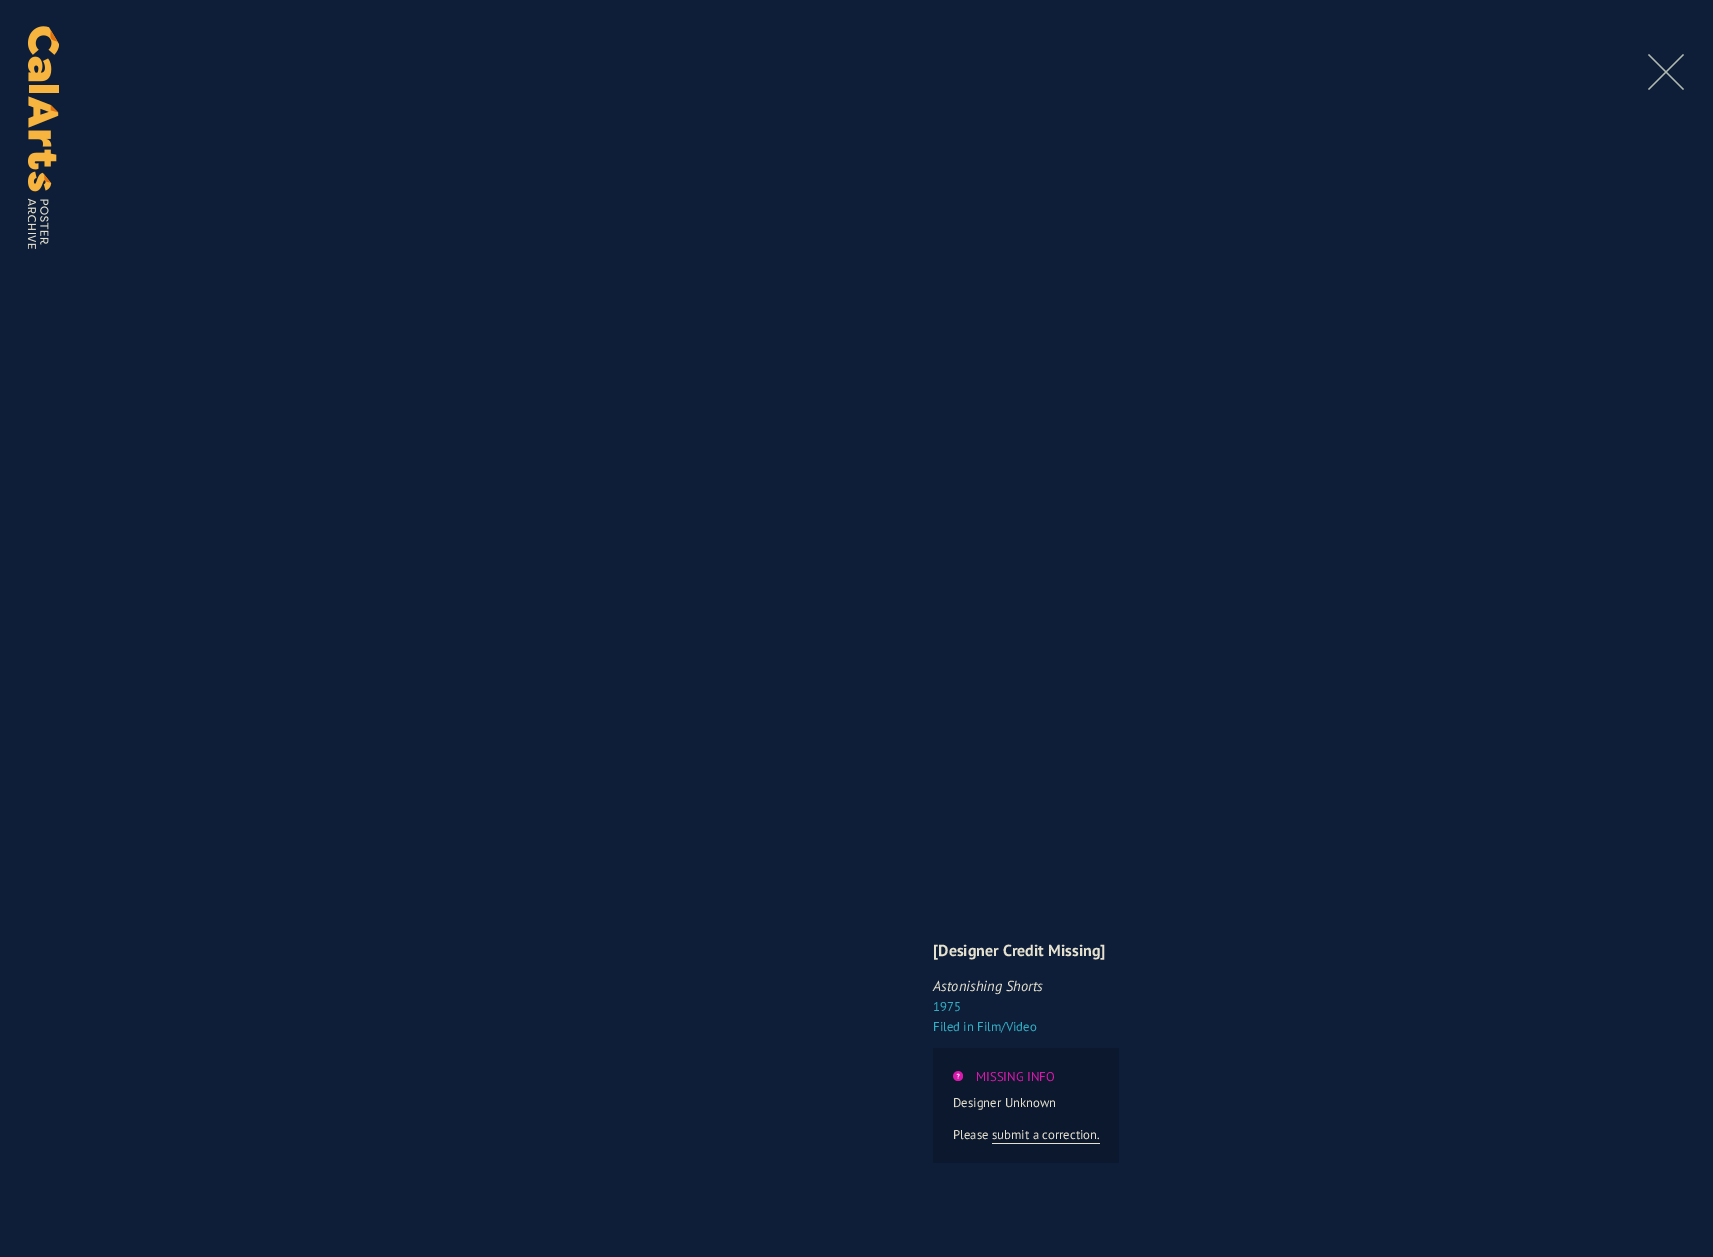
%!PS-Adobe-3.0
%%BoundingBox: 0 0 1713 1257
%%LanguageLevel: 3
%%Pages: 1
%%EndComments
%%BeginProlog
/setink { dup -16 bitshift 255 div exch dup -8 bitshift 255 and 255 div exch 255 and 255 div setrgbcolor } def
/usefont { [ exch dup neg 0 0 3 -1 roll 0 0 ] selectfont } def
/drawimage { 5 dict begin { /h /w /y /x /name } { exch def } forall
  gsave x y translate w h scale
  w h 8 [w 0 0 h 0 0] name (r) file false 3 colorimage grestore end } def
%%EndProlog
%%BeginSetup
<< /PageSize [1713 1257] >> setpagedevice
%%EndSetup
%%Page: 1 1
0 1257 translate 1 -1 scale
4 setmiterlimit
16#0E1E38 setink
0 0 1713 1257 rectfill
(img1.raw) 27 26 32 223 drawimage
16#AFBAB1 setink
1684 55 moveto 1683 54 lineto 1666 71 lineto 1649 54 lineto 1648 55 lineto 1665 72 lineto 1648 89 lineto 1649 90 lineto 1666 73 lineto 1683 90 lineto 1684 89 lineto 1667 72 lineto closepath fill
/PTSans-Bold 16 usefont
16#E5E1CF setink
933 956 moveto ([Designer Credit Missing]) show
/PTSans-Italic 14.5 usefont
933 991 moveto (Astonishing Shorts) show
/PTSans-Regular 12.75 usefont
16#33AFC4 setink
933 1011 moveto (1975) show
933 1031 moveto (Filed in Film/Video) show
16#0B182D setink
933 1048 186 115 rectfill
(img2.raw) 953 1071 10 10 drawimage
16#D819AB setink
976 1081 moveto (MISSING INFO) show
16#E5E1CF setink
953 1107 moveto (Designer Unknown) show
953 1139 moveto (Please submit a correction.) show
992 1143 108 1 rectfill
showpage
%%EOF
